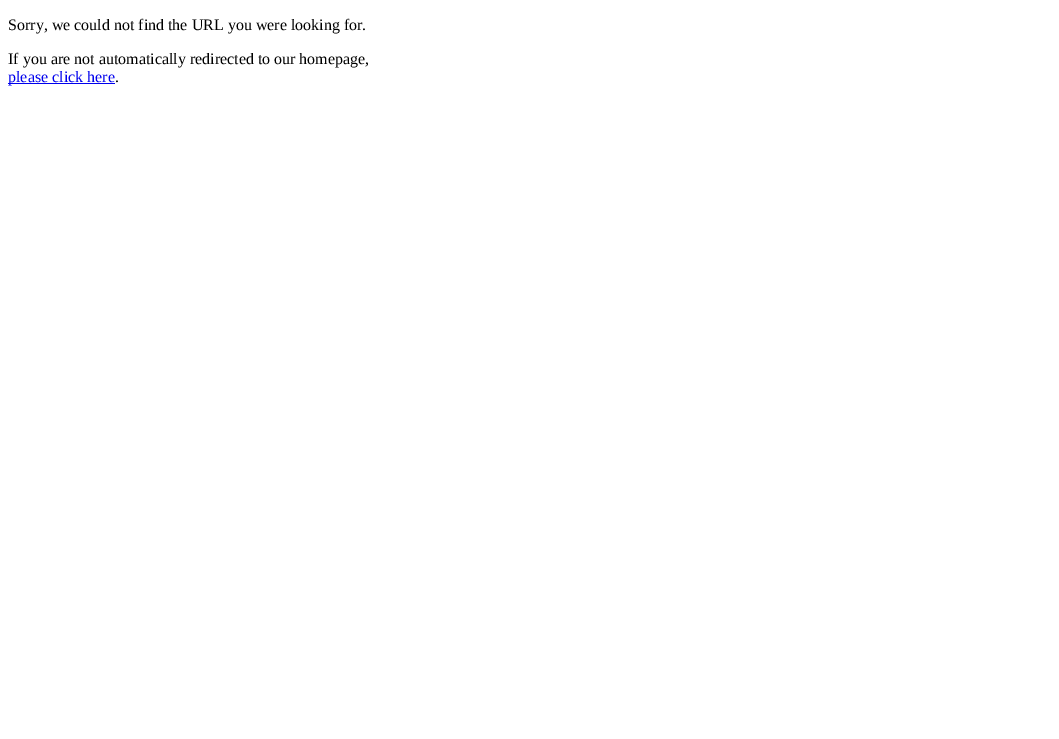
%!PS-Adobe-3.0
%%BoundingBox: 0 0 1059 739
%%LanguageLevel: 3
%%Pages: 1
%%EndComments
%%BeginProlog
/setink { dup -16 bitshift 255 div exch dup -8 bitshift 255 and 255 div exch 255 and 255 div setrgbcolor } def
/usefont { [ exch dup neg 0 0 3 -1 roll 0 0 ] selectfont } def
%%EndProlog
%%BeginSetup
<< /PageSize [1059 739] >> setpagedevice
%%EndSetup
%%Page: 1 1
0 739 translate 1 -1 scale
4 setmiterlimit
16#FFFFFF setink
0 0 1059 739 rectfill
/LiberationSerif-Regular 16 usefont
16#000000 setink
8 30 moveto (Sorry, we could not find the URL you were looking for.) show
8 64 moveto (If you are not automatically redirected to our homepage,) show
16#0000EE setink
8 83 107 1 rectfill
8 82 moveto (please click here) show
16#000000 setink
115 82 moveto (.) show
showpage
%%EOF
